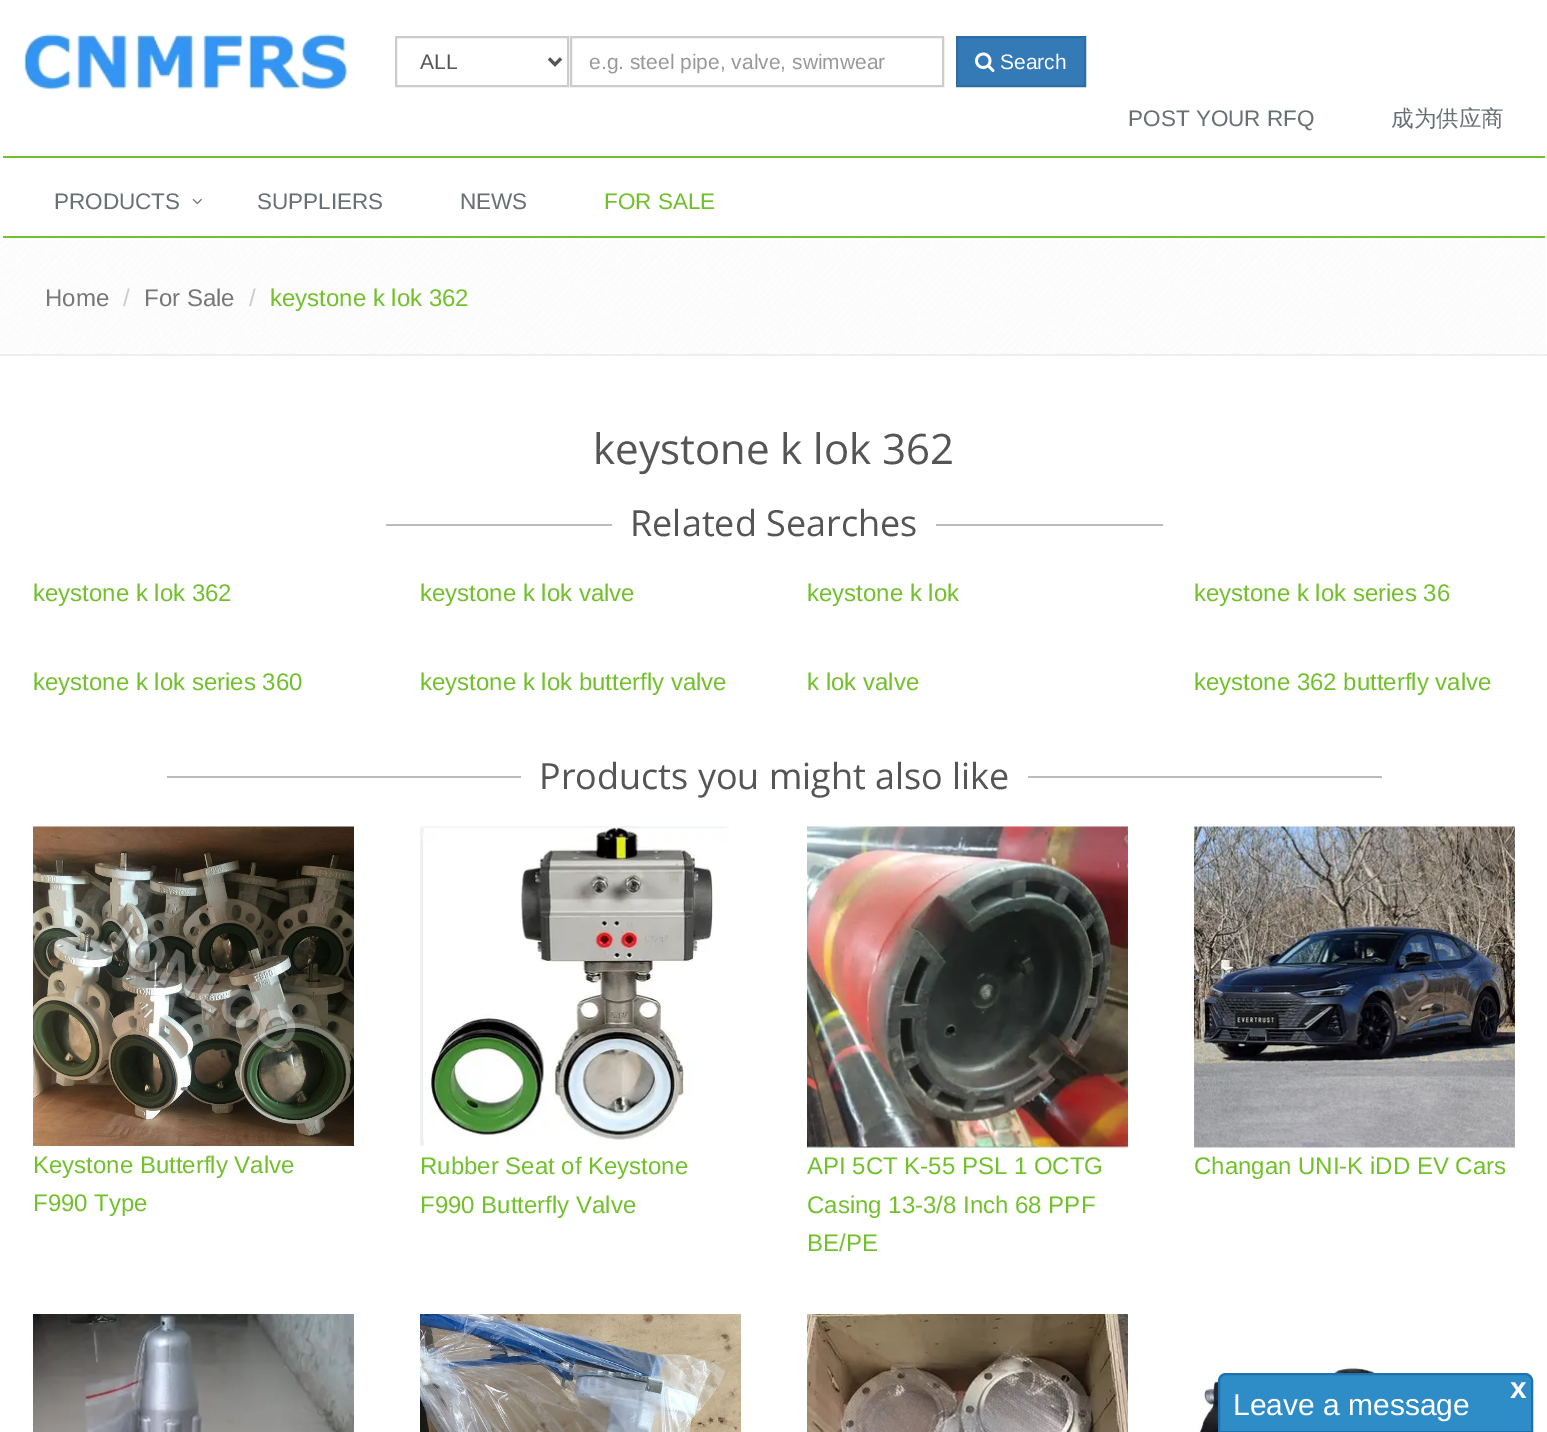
%!PS-Adobe-3.0
%%BoundingBox: 0 0 1547 1432
%%LanguageLevel: 3
%%Pages: 1
%%EndComments
%%BeginProlog
/setink { dup -16 bitshift 255 div exch dup -8 bitshift 255 and 255 div exch 255 and 255 div setrgbcolor } def
/usefont { [ exch dup neg 0 0 3 -1 roll 0 0 ] selectfont } def
/drawimage { 5 dict begin { /h /w /y /x /name } { exch def } forall
  gsave x y translate w h scale
  w h 8 [w 0 0 h 0 0] name (r) file false 3 colorimage grestore end } def
%%EndProlog
%%BeginSetup
<< /PageSize [1547 1432] >> setpagedevice
%%EndSetup
%%Page: 1 1
0 1432 translate 1 -1 scale
4 setmiterlimit
16#FFFFFF setink
0 0 1547 1432 rectfill
(img1.raw) 23 34 324 57 drawimage
16#CCCCCC setink
2 setlinewidth
396 37 172 49 rectstroke
16#555555 setink
3 setlinewidth
549 58.5 moveto 555 64.5 lineto 561 58.5 lineto stroke
/LiberationSans-Regular 21 usefont
420 69 moveto (ALL) show
16#CCCCCC setink
2 setlinewidth
571 37 372 49 rectstroke
16#999999 setink
589 69 moveto (e.g. steel pipe, valve, swimwear) show
16#337AB7 setink
957 37 moveto 1085 37 lineto 1085 86 lineto 957 86 lineto closepath gsave fill grestore
16#2E6DA4 setink
stroke
(img2.raw) 975 52 20 20 drawimage
16#FFFFFF setink
1000 69 moveto (Search) show
/LiberationSans-Regular 22.5 usefont
16#687074 setink
1128 126 moveto (POST YOUR RFQ) show
/WenQuanYiZenHei-Medium 22.5 usefont
1391 126 moveto (成为供应商) show
16#72C02C setink
3 156 1542 2 rectfill
(img4.raw) 0 237 1546 117 drawimage
3 236 1542 2 rectfill
/LiberationSans-Regular 22.5 usefont
16#687074 setink
54 209 moveto (PRODUCTS) show
(img3.raw) 192 198 10 7 drawimage
257 209 moveto (SUPPLIERS) show
460 209 moveto (NEWS) show
16#72C02C setink
604 209 moveto (FOR SALE) show
16#EEEEEE setink
0 354 1547 2 rectfill
/LiberationSans-Regular 24 usefont
16#777777 setink
45 306 moveto (Home) show
16#CCCCCC setink
123 306 moveto (/) show
16#777777 setink
144 306 moveto (For Sale) show
16#CCCCCC setink
249 306 moveto (/) show
16#72C02C setink
270 306 moveto (keystone k lok 362) show
/OpenSans-Regular 42 usefont
16#555555 setink
593 464 moveto (keystone k lok 362) show
16#BBBBBB setink
386 524 226 2 rectfill
/OpenSans-Regular 36 usefont
16#555555 setink
630 536 moveto (Related Searches) show
16#BBBBBB setink
936 524 227 2 rectfill
/LiberationSans-Regular 24 usefont
16#72C02C setink
[
    [(keystone k lok 362) 33 601]
    [(keystone k lok valve) 420 601]
    [(keystone k lok) 807 601]
    [(keystone k lok series 36) 1194 601]
    [(keystone k lok series 360) 33 690]
    [(keystone k lok butterfly valve) 420 690]
    [(k lok valve) 807 690]
    [(keystone 362 butterfly valve) 1194 690]
] { aload pop moveto show } forall
16#BBBBBB setink
167 776 354 2 rectfill
/OpenSans-Regular 36 usefont
16#555555 setink
539 789 moveto (Products you might also like) show
16#BBBBBB setink
1028 776 354 2 rectfill
(img5.raw) 33 826 321 320 drawimage
/LiberationSans-Regular 24 usefont
16#72C02C setink
33 1173 moveto (Keystone Butterfly Valve) show
33 1211 moveto (F990 Type) show
(img6.raw) 420 826 309 320 drawimage
420 1174 moveto (Rubber Seat of Keystone) show
420 1213 moveto (F990 Butterfly Valve) show
(img7.raw) 807 826 321 322 drawimage
[
    [(API 5CT K-55 PSL 1 OCTG) 807 1174]
    [(Casing 13-3/8 Inch 68 PPF) 807 1213]
    [(BE/PE) 807 1251]
] { aload pop moveto show } forall
(img8.raw) 1194 826 321 322 drawimage
1194 1174 moveto (Changan UNI-K iDD EV Cars) show
(img9.raw) 33 1314 321 118 drawimage
(img10.raw) 420 1314 321 118 drawimage
(img11.raw) 807 1314 321 118 drawimage
(img12.raw) 1198 1366 313 66 drawimage
16#2E8DC7 setink
1226 1374 moveto 1525 1374 lineto 1529 1374 1532 1377 1532 1381 curveto 1532 1432 lineto 1219 1432 lineto 1219 1381 lineto 1219 1377 1222 1374 1226 1374 curveto closepath gsave fill grestore
16#2070B0 setink
stroke
/LiberationSans-Bold 30 usefont
16#FFFFFF setink
1510 1398 moveto (x) show
/LiberationSans-Regular 30 usefont
1233 1415 moveto (Leave a message) show
showpage
%%EOF
